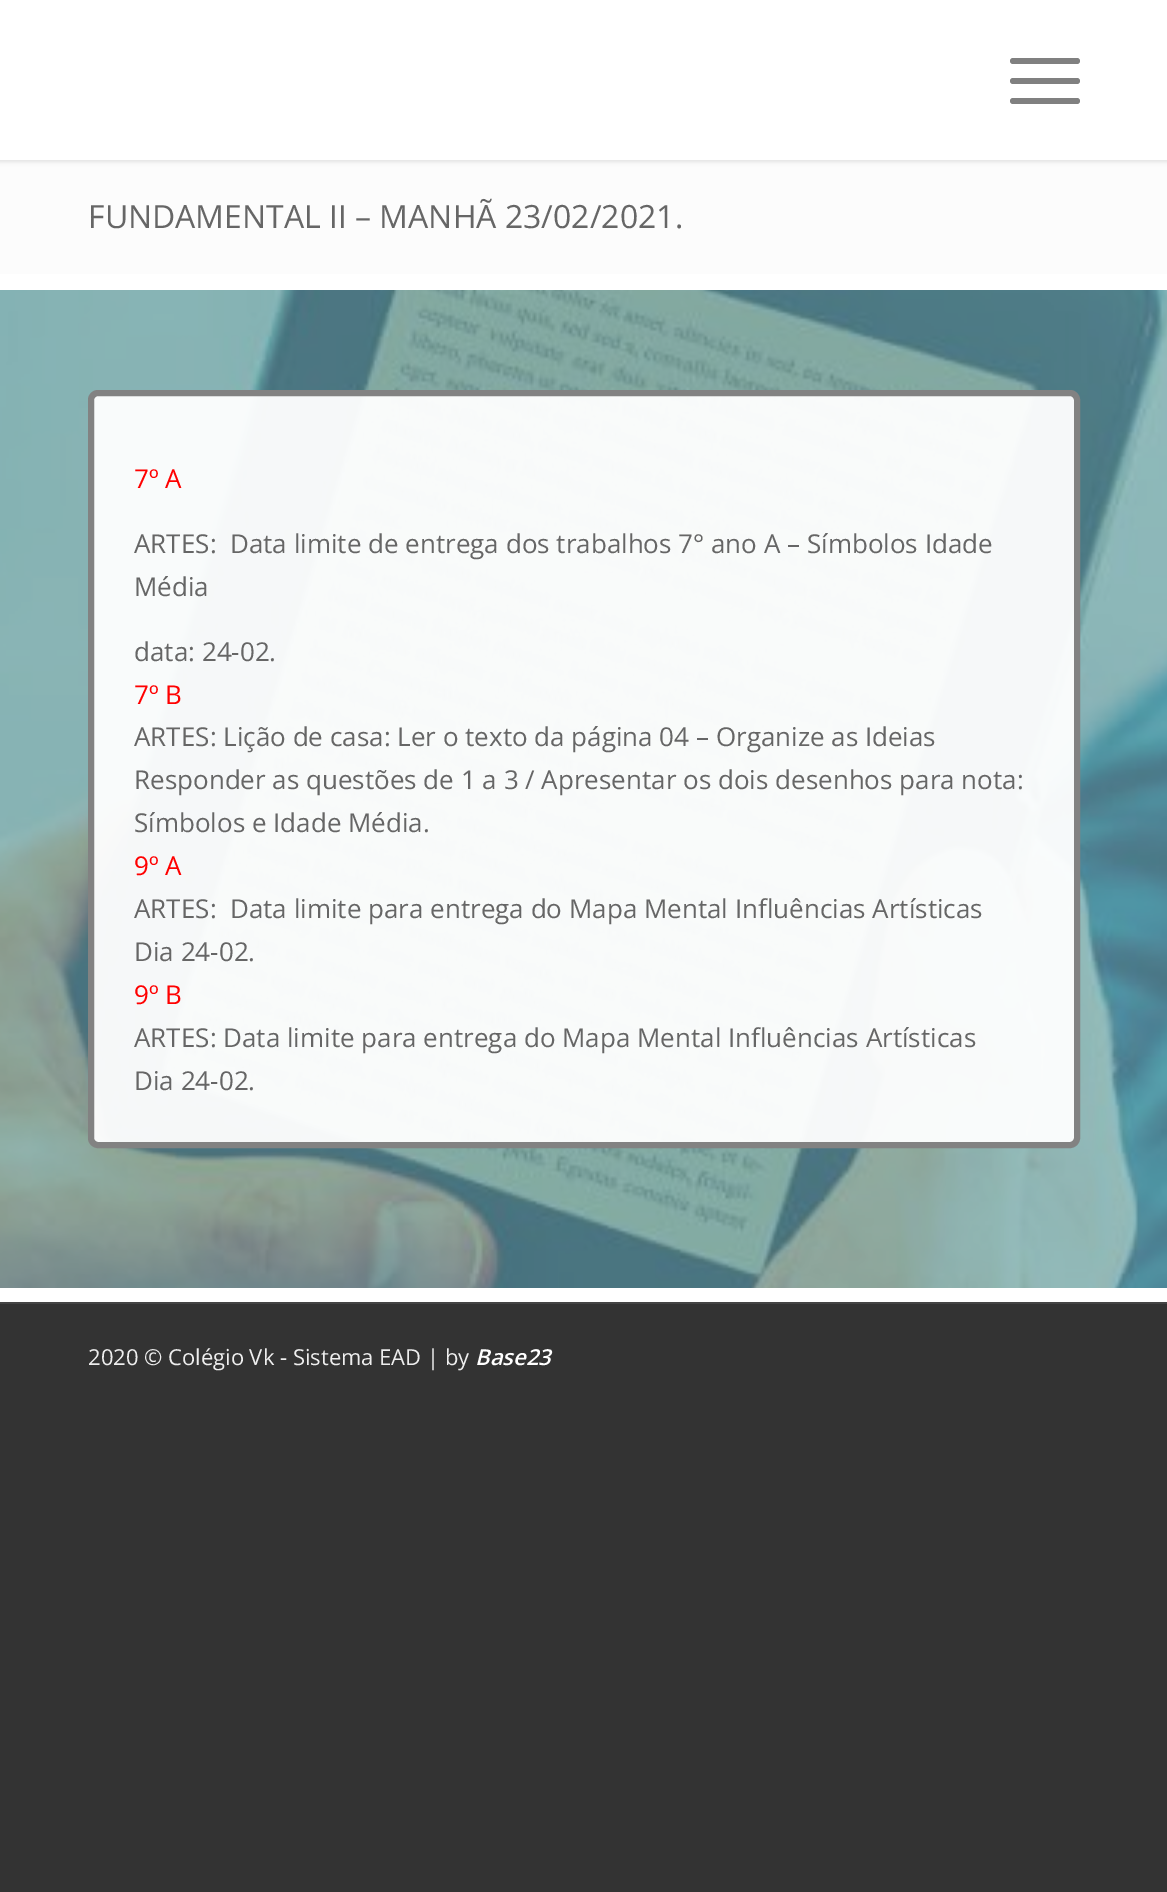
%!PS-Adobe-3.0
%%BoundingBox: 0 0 1167 1892
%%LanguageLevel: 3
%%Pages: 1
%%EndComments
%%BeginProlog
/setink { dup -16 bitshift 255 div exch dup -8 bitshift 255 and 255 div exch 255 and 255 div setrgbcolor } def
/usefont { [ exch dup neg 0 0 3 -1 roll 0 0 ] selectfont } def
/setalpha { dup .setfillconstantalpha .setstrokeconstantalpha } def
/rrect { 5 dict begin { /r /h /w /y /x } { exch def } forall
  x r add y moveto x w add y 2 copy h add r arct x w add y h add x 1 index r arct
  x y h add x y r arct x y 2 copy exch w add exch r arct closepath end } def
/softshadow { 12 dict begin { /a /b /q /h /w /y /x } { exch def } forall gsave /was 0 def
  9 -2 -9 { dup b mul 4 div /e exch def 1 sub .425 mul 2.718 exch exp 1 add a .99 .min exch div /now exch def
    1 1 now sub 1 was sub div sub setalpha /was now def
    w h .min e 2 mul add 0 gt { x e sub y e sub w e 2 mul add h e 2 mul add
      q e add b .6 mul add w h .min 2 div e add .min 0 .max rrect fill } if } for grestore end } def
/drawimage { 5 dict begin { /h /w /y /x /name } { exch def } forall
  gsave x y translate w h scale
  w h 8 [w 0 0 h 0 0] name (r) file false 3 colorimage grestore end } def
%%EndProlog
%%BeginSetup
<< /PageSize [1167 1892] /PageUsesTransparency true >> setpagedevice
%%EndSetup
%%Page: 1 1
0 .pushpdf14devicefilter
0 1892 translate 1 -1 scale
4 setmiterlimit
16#333333 setink
0 0 1167 1892 rectfill
16#FCFCFC setink
0 160 1167 114 rectfill
16#000000 setink
-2 -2 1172 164 0 2 0.1 softshadow
16#FFFFFF setink
0 0 1167 160 rectfill
16#808080 setink
1010 78 70 6 3 rrect fill
1010 58 70 6 3 rrect fill
1010 98 70 6 3 rrect fill
16#FFFFFF setink
0 274 1167 1028 rectfill
/OpenSans-Regular 32 usefont
16#666666 setink
88 228 moveto (FUNDAMENTAL II – MANHÃ 23/02/2021.) show
(img1.raw) 0 290 1167 998 drawimage
0.95 setalpha
16#FFFFFF setink
91 393 986 752 7 rrect fill
1 setalpha
16#828282 setink
6 setlinewidth
91 393 986 752 7 rrect stroke
/OpenSans-Regular 26 usefont
16#FF0000 setink
134 488 moveto (7º A) show
16#666666 setink
[
    [(ARTES:  Data limite de entrega dos trabalhos 7° ano A – Símbolos Idade) 134 553]
    [(Média) 134 596]
    [(data: 24-02.) 134 661]
] { aload pop moveto show } forall
16#FF0000 setink
134 704 moveto (7º B) show
16#666666 setink
[
    [(ARTES: Lição de casa: Ler o texto da página 04 – Organize as Ideias) 134 746]
    [(Responder as questões de 1 a 3 / Apresentar os dois desenhos para nota:) 134 789]
    [(Símbolos e Idade Média.) 134 832]
] { aload pop moveto show } forall
16#FF0000 setink
134 875 moveto (9º A) show
16#666666 setink
134 918 moveto (ARTES:  Data limite para entrega do Mapa Mental Influências Artísticas) show
134 961 moveto (Dia 24-02.) show
16#FF0000 setink
134 1004 moveto (9º B) show
16#666666 setink
134 1047 moveto (ARTES: Data limite para entrega do Mapa Mental Influências Artísticas) show
134 1090 moveto (Dia 24-02.) show
16#444444 setink
0 1302 1167 2 rectfill
/OpenSans-Regular 22 usefont
16#EEEEEE setink
88 1365 moveto (2020 © Colégio Vk - Sistema EAD | by) show
/OpenSans-SemiBoldItalic 22 usefont
16#FFFFFF setink
475 1365 moveto (Base23) show
.poppdf14devicefilter showpage
%%EOF
